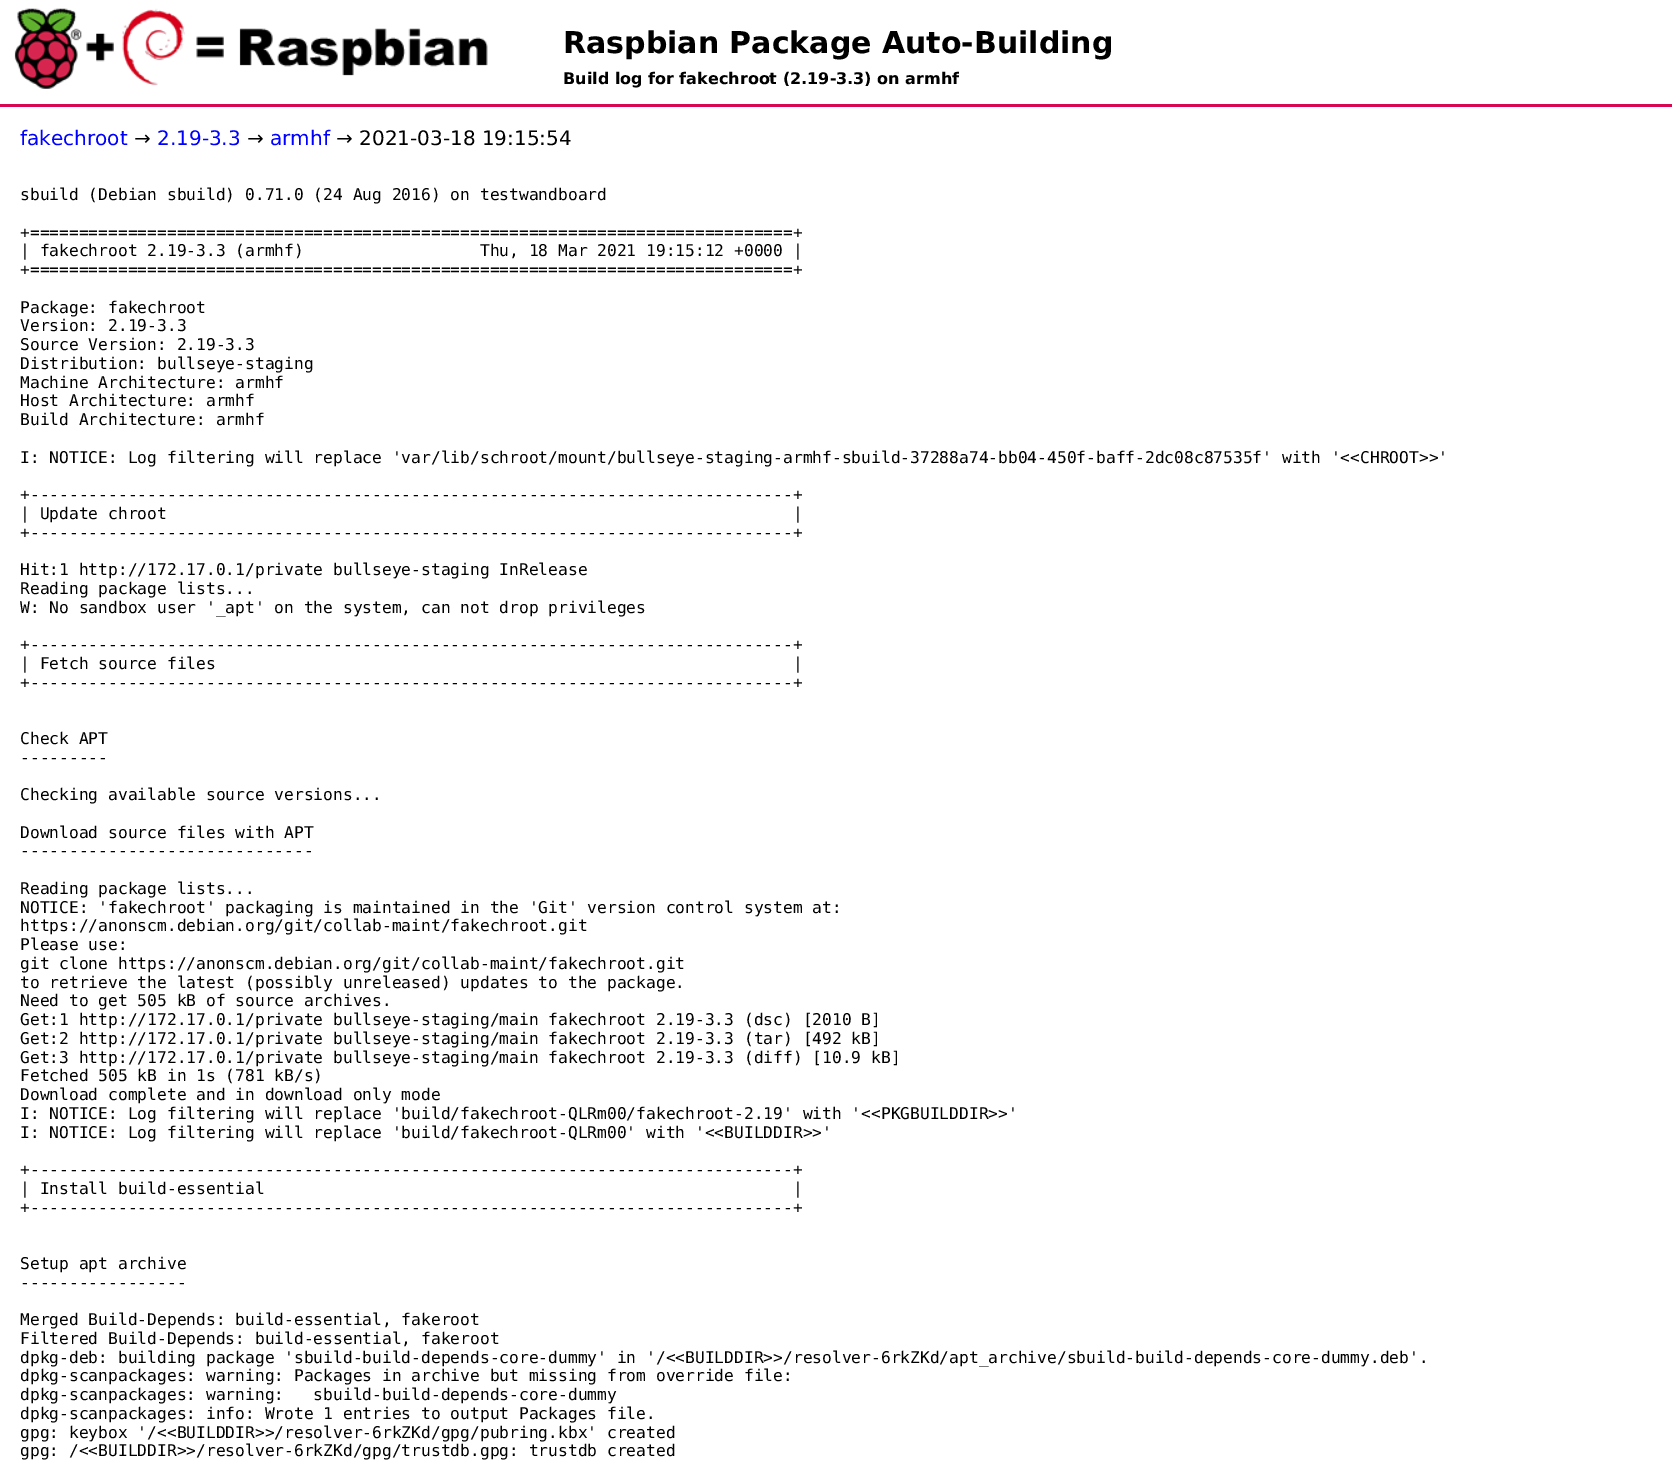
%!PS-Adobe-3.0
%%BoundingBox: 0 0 1672 1466
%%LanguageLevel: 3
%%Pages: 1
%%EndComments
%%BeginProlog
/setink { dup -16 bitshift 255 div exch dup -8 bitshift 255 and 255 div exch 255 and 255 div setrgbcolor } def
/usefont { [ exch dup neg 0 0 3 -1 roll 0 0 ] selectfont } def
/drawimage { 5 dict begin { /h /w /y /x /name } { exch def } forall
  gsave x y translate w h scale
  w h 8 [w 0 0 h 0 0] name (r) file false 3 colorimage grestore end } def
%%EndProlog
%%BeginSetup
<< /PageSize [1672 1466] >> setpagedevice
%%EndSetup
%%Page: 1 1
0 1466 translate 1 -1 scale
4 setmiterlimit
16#FFFFFF setink
0 0 1672 1466 rectfill
(img1.raw) 14 8 474 81 drawimage
/DejaVuSans-Bold 30 usefont
16#000000 setink
563 53 moveto (Raspbian Package Auto-Building) show
/DejaVuSans-Bold 16 usefont
563 84 moveto (Build log for fakechroot \(2.19-3.3\) on armhf) show
16#D70751 setink
0 104 1672 3 rectfill
/DejaVuSans-Regular 20 usefont
16#0000FF setink
20 145 moveto (fakechroot) show
16#000000 setink
134 145 moveto (→) show
16#0000FF setink
157 145 moveto (2.19-3.3) show
16#000000 setink
247 145 moveto (→) show
16#0000FF setink
270 145 moveto (armhf) show
16#000000 setink
336 145 moveto (→ 2021-03-18 19:15:54) show
/DejaVuSansMono-Regular 16.25 usefont
[
    [(sbuild \(Debian sbuild\) 0.71.0 \(24 Aug 2016\) on testwandboard) 20 200]
    [(+==============================================================================+) 20 238]
    [(| fakechroot 2.19-3.3 \(armhf\)                  Thu, 18 Mar 2021 19:15:12 +0000 |) 20 256]
    [(+==============================================================================+) 20 275]
    [(Package: fakechroot) 20 313]
    [(Version: 2.19-3.3) 20 331]
    [(Source Version: 2.19-3.3) 20 350]
    [(Distribution: bullseye-staging) 20 369]
    [(Machine Architecture: armhf) 20 388]
    [(Host Architecture: armhf) 20 406]
    [(Build Architecture: armhf) 20 425]
    [(I: NOTICE: Log filtering will replace 'var/lib/schroot/mount/bullseye-staging-armhf-sbuild-37288a74-bb04-450f-baff-2dc08c87535f' with '<<CHROOT>>') 20 463]
    [(+------------------------------------------------------------------------------+) 20 500]
    [(| Update chroot                                                                |) 20 519]
    [(+------------------------------------------------------------------------------+) 20 538]
    [(Hit:1 http://172.17.0.1/private bullseye-staging InRelease) 20 575]
    [(Reading package lists...) 20 594]
    [(W: No sandbox user '_apt' on the system, can not drop privileges) 20 613]
    [(+------------------------------------------------------------------------------+) 20 650]
    [(| Fetch source files                                                           |) 20 669]
    [(+------------------------------------------------------------------------------+) 20 688]
    [(Check APT) 20 744]
    [(---------) 20 763]
    [(Checking available source versions...) 20 800]
    [(Download source files with APT) 20 838]
    [(------------------------------) 20 856]
    [(Reading package lists...) 20 894]
    [(NOTICE: 'fakechroot' packaging is maintained in the 'Git' version control system at:) 20 913]
    [(https://anonscm.debian.org/git/collab-maint/fakechroot.git) 20 931]
    [(Please use:) 20 950]
    [(git clone https://anonscm.debian.org/git/collab-maint/fakechroot.git) 20 969]
    [(to retrieve the latest \(possibly unreleased\) updates to the package.) 20 988]
    [(Need to get 505 kB of source archives.) 20 1006]
    [(Get:1 http://172.17.0.1/private bullseye-staging/main fakechroot 2.19-3.3 \(dsc\) [2010 B]) 20 1025]
    [(Get:2 http://172.17.0.1/private bullseye-staging/main fakechroot 2.19-3.3 \(tar\) [492 kB]) 20 1044]
    [(Get:3 http://172.17.0.1/private bullseye-staging/main fakechroot 2.19-3.3 \(diff\) [10.9 kB]) 20 1063]
    [(Fetched 505 kB in 1s \(781 kB/s\)) 20 1081]
    [(Download complete and in download only mode) 20 1100]
    [(I: NOTICE: Log filtering will replace 'build/fakechroot-QLRm00/fakechroot-2.19' with '<<PKGBUILDDIR>>') 20 1119]
    [(I: NOTICE: Log filtering will replace 'build/fakechroot-QLRm00' with '<<BUILDDIR>>') 20 1138]
    [(+------------------------------------------------------------------------------+) 20 1175]
    [(| Install build-essential                                                      |) 20 1194]
    [(+------------------------------------------------------------------------------+) 20 1213]
    [(Setup apt archive) 20 1269]
    [(-----------------) 20 1288]
    [(Merged Build-Depends: build-essential, fakeroot) 20 1325]
    [(Filtered Build-Depends: build-essential, fakeroot) 20 1344]
    [(dpkg-deb: building package 'sbuild-build-depends-core-dummy' in '/<<BUILDDIR>>/resolver-6rkZKd/apt_archive/sbuild-build-depends-core-dummy.deb'.) 20 1363]
    [(dpkg-scanpackages: warning: Packages in archive but missing from override file:) 20 1381]
    [(dpkg-scanpackages: warning:   sbuild-build-depends-core-dummy) 20 1400]
    [(dpkg-scanpackages: info: Wrote 1 entries to output Packages file.) 20 1419]
    [(gpg: keybox '/<<BUILDDIR>>/resolver-6rkZKd/gpg/pubring.kbx' created) 20 1438]
    [(gpg: /<<BUILDDIR>>/resolver-6rkZKd/gpg/trustdb.gpg: trustdb created) 20 1456]
] { aload pop moveto show } forall
showpage
%%EOF
